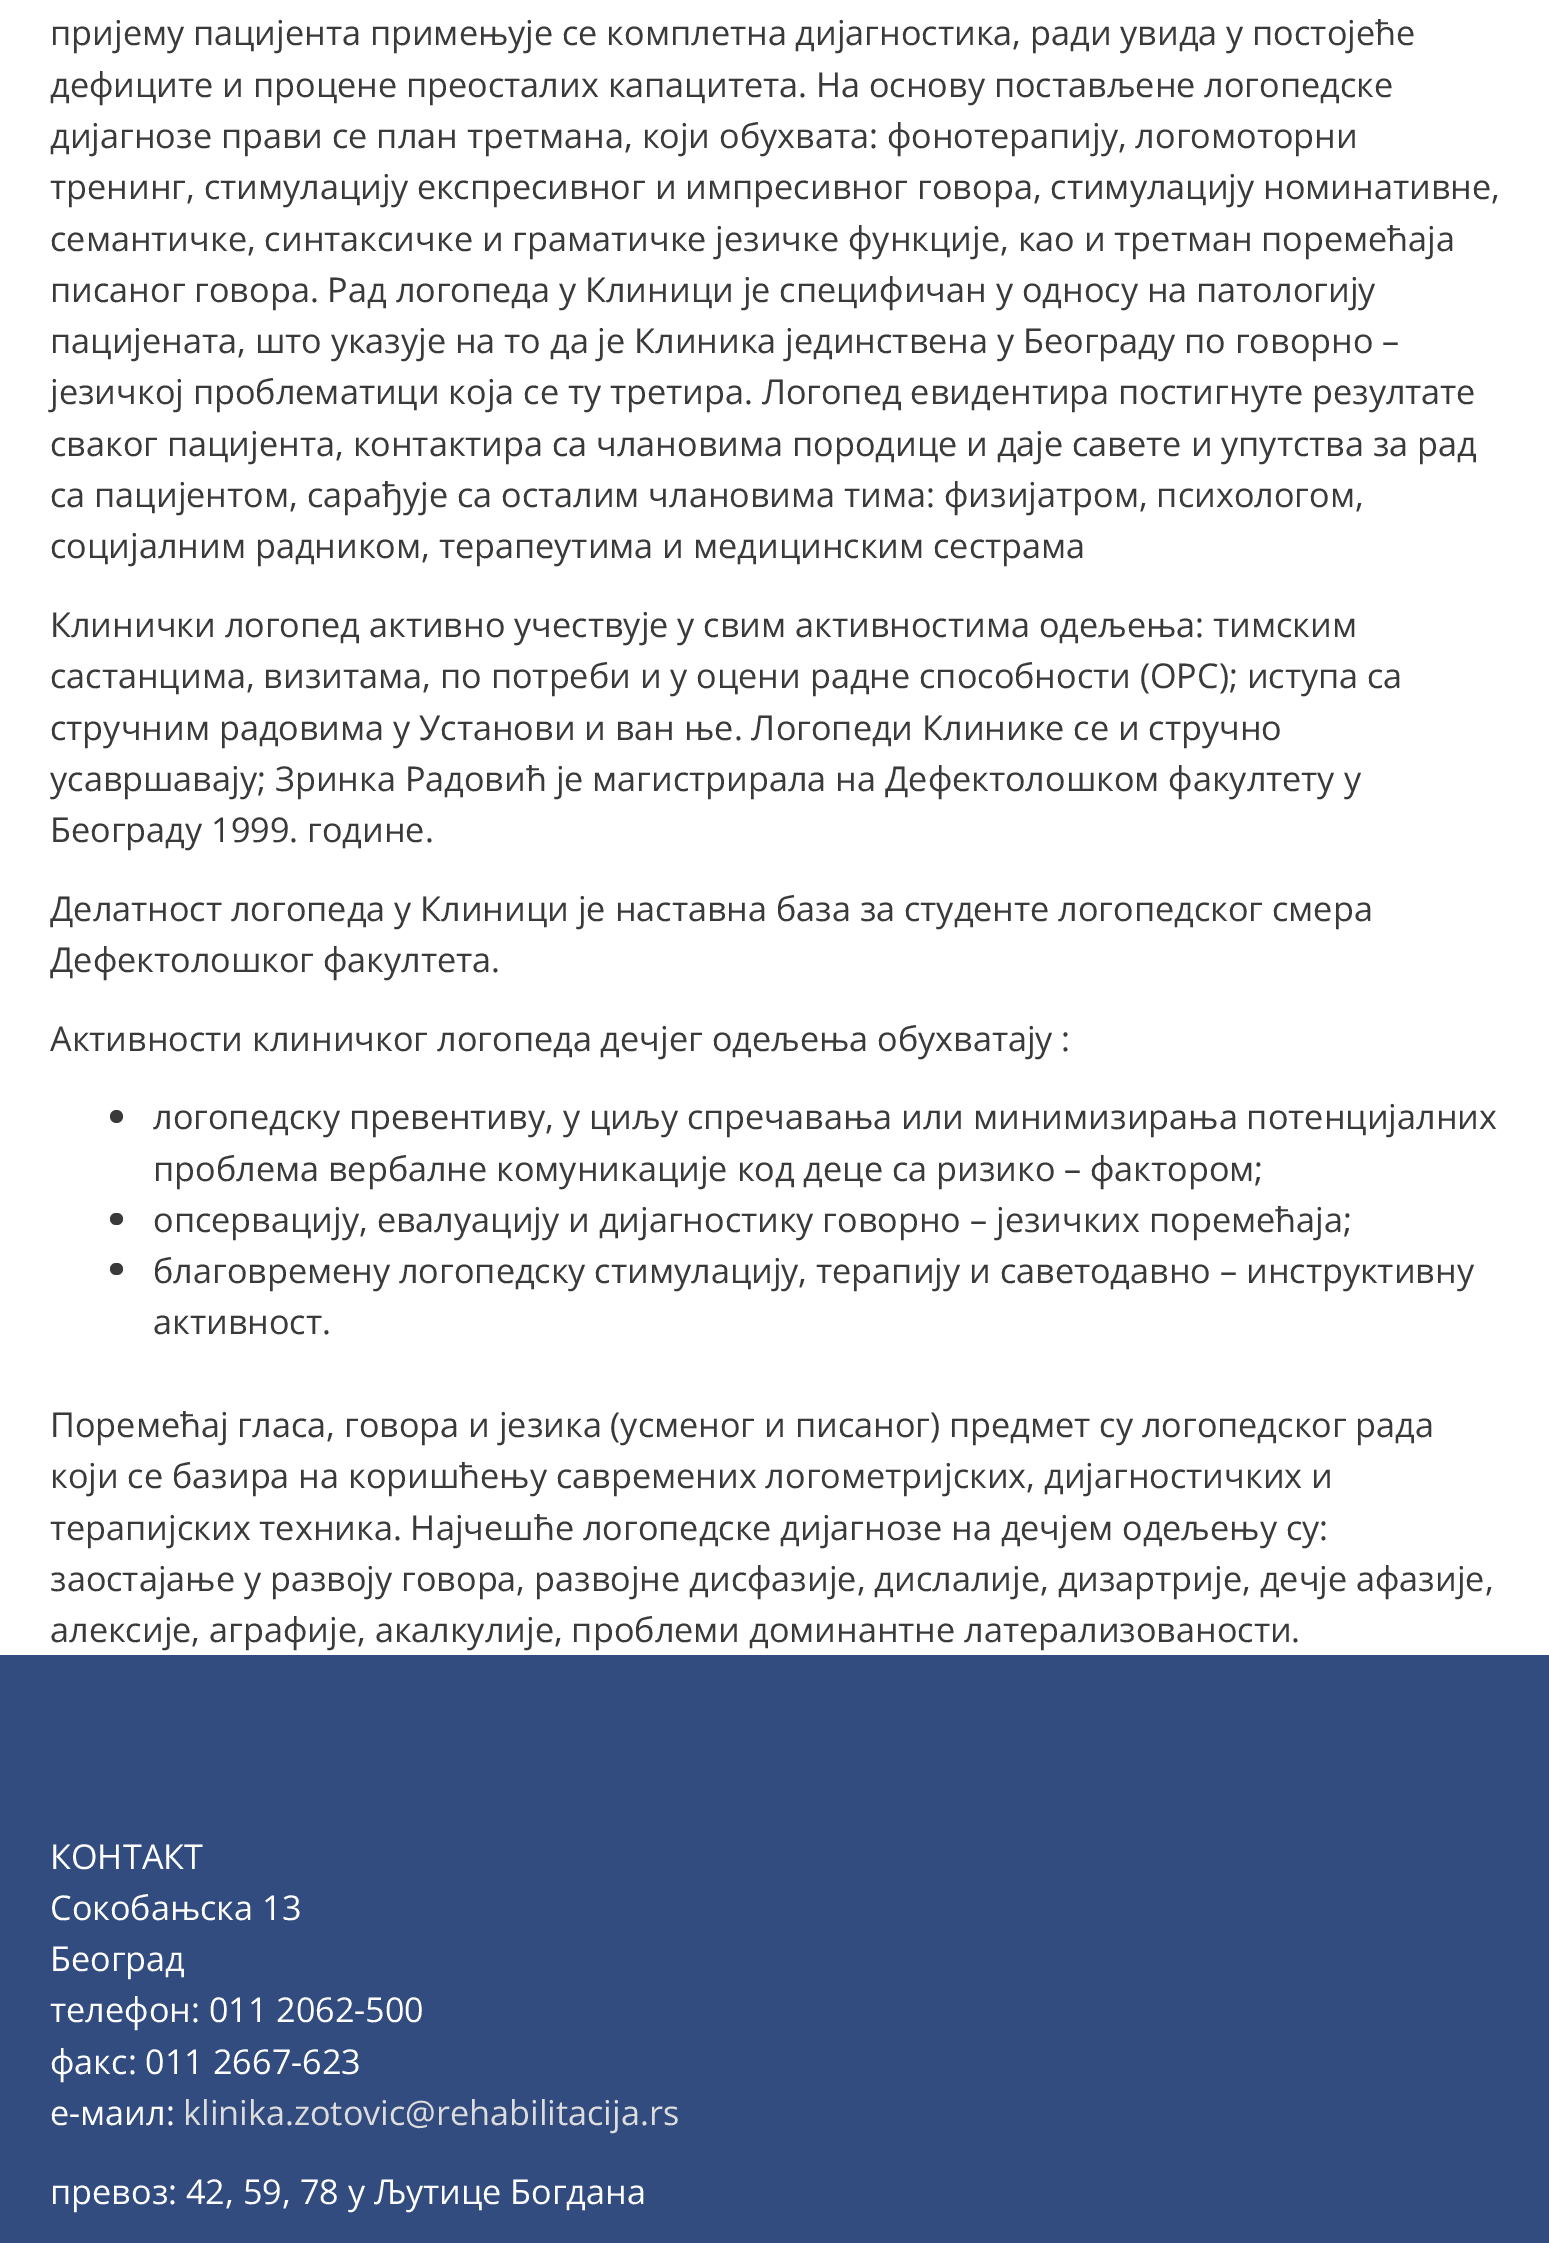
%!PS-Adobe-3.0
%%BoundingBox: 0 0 1549 2243
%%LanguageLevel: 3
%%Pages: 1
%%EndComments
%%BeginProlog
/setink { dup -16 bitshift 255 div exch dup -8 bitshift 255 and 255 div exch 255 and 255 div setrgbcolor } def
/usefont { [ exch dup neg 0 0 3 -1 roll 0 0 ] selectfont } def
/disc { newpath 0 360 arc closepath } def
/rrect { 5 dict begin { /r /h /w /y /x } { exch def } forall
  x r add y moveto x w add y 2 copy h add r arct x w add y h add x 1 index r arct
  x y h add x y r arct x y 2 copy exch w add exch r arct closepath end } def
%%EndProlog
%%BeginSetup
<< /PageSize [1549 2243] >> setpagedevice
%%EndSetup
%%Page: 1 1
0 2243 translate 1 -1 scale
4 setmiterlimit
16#FFFFFF setink
0 0 1549 2243 rectfill
/OpenSans-Regular 34.2 usefont
16#3A3A3A setink
[
    [(пријему пацијента примењује се комплетна дијагностика, ради увида у постојеће) 50 45]
    [(дефиците и процене преосталих капацитета. На основу постављене логопедске) 50 97]
    [(дијагнозе прави се план третмана, који обухвата: фонотерапију, логомоторни) 50 148]
    [(тренинг, стимулацију експресивног и импресивног говора, стимулацију номинативне,) 50 199]
    [(семантичке, синтаксичке и граматичке језичке функције, као и третман поремећаја) 50 251]
    [(писаног говора. Рад логопеда у Клиници је специфичан у односу на патологију) 50 302]
    [(пацијената, што указује на то да је Клиника јединствена у Београду по говорно –) 50 353]
    [(језичкој проблематици која се ту третира. Логопед евидентира постигнуте резултате) 50 404]
    [(сваког пацијента, контактира са члановима породице и даје савете и упутства за рад) 50 456]
    [(са пацијентом, сарађује са осталим члановима тима: физијатром, психологом,) 50 507]
    [(социјалним радником, терапеутима и медицинским сестрама) 50 558]
    [(Клинички логопед активно учествује у свим активностима одељења: тимским) 50 637]
    [(састанцима, визитама, по потреби и у оцени радне способности \(ОРС\); иступа са) 50 688]
    [(стручним радовима у Установи и ван ње. Логопеди Клинике се и стручно) 50 740]
    [(усавршавају; Зринка Радовић је магистрирала на Дефектолошком факултету у) 50 791]
    [(Београду 1999. године.) 50 842]
    [(Делатност логопеда у Клиници је наставна база за студенте логопедског смера) 50 921]
    [(Дефектолошког факултета.) 50 972]
    [(Активности клиничког логопеда дечјег одељења обухватају :) 50 1051]
] { aload pop moveto show } forall
116.5 1116.5 6.5 disc fill
153 1129 moveto (логопедску превентиву, у циљу спречавања или минимизирања потенцијалних) show
153 1181 moveto (проблема вербалне комуникације код деце са ризико – фактором;) show
110 1213 13 12 6 rrect fill
153 1232 moveto (опсервацију, евалуацију и дијагностику говорно – језичких поремећаја;) show
110 1263 13 12 6 rrect fill
[
    [(благовремену логопедску стимулацију, терапију и саветодавно – инструктивну) 153 1283]
    [(активност.) 153 1334]
    [(Поремећај гласа, говора и језика \(усменог и писаног\) предмет су логопедског рада) 50 1437]
    [(који се базира на коришћењу савремених логометријских, дијагностичких и) 50 1488]
    [(терапијских техника. Најчешће логопедске дијагнозе на дечјем одељењу су:) 50 1540]
    [(заостајање у развоју говора, развојне дисфазије, дислалије, дизартрије, дечје афазије,) 50 1591]
    [(алексије, аграфије, акалкулије, проблеми доминантне латерализованости.) 50 1642]
] { aload pop moveto show } forall
16#324C80 setink
0 1655 1549 588 rectfill
16#FFFFFF setink
[
    [(КОНТАКТ) 50 1869]
    [(Сокобањска 13) 50 1920]
    [(Београд) 50 1971]
    [(телефон: 011 2062-500) 50 2022]
    [(факс: 011 2667-623) 50 2074]
    [(е-маил:) 50 2125]
] { aload pop moveto show } forall
16#DDDDDD setink
183 2125 moveto (klinika.zotovic@rehabilitacija.rs) show
16#FFFFFF setink
50 2204 moveto (превоз: 42, 59, 78 у Љутице Богдана) show
showpage
%%EOF
